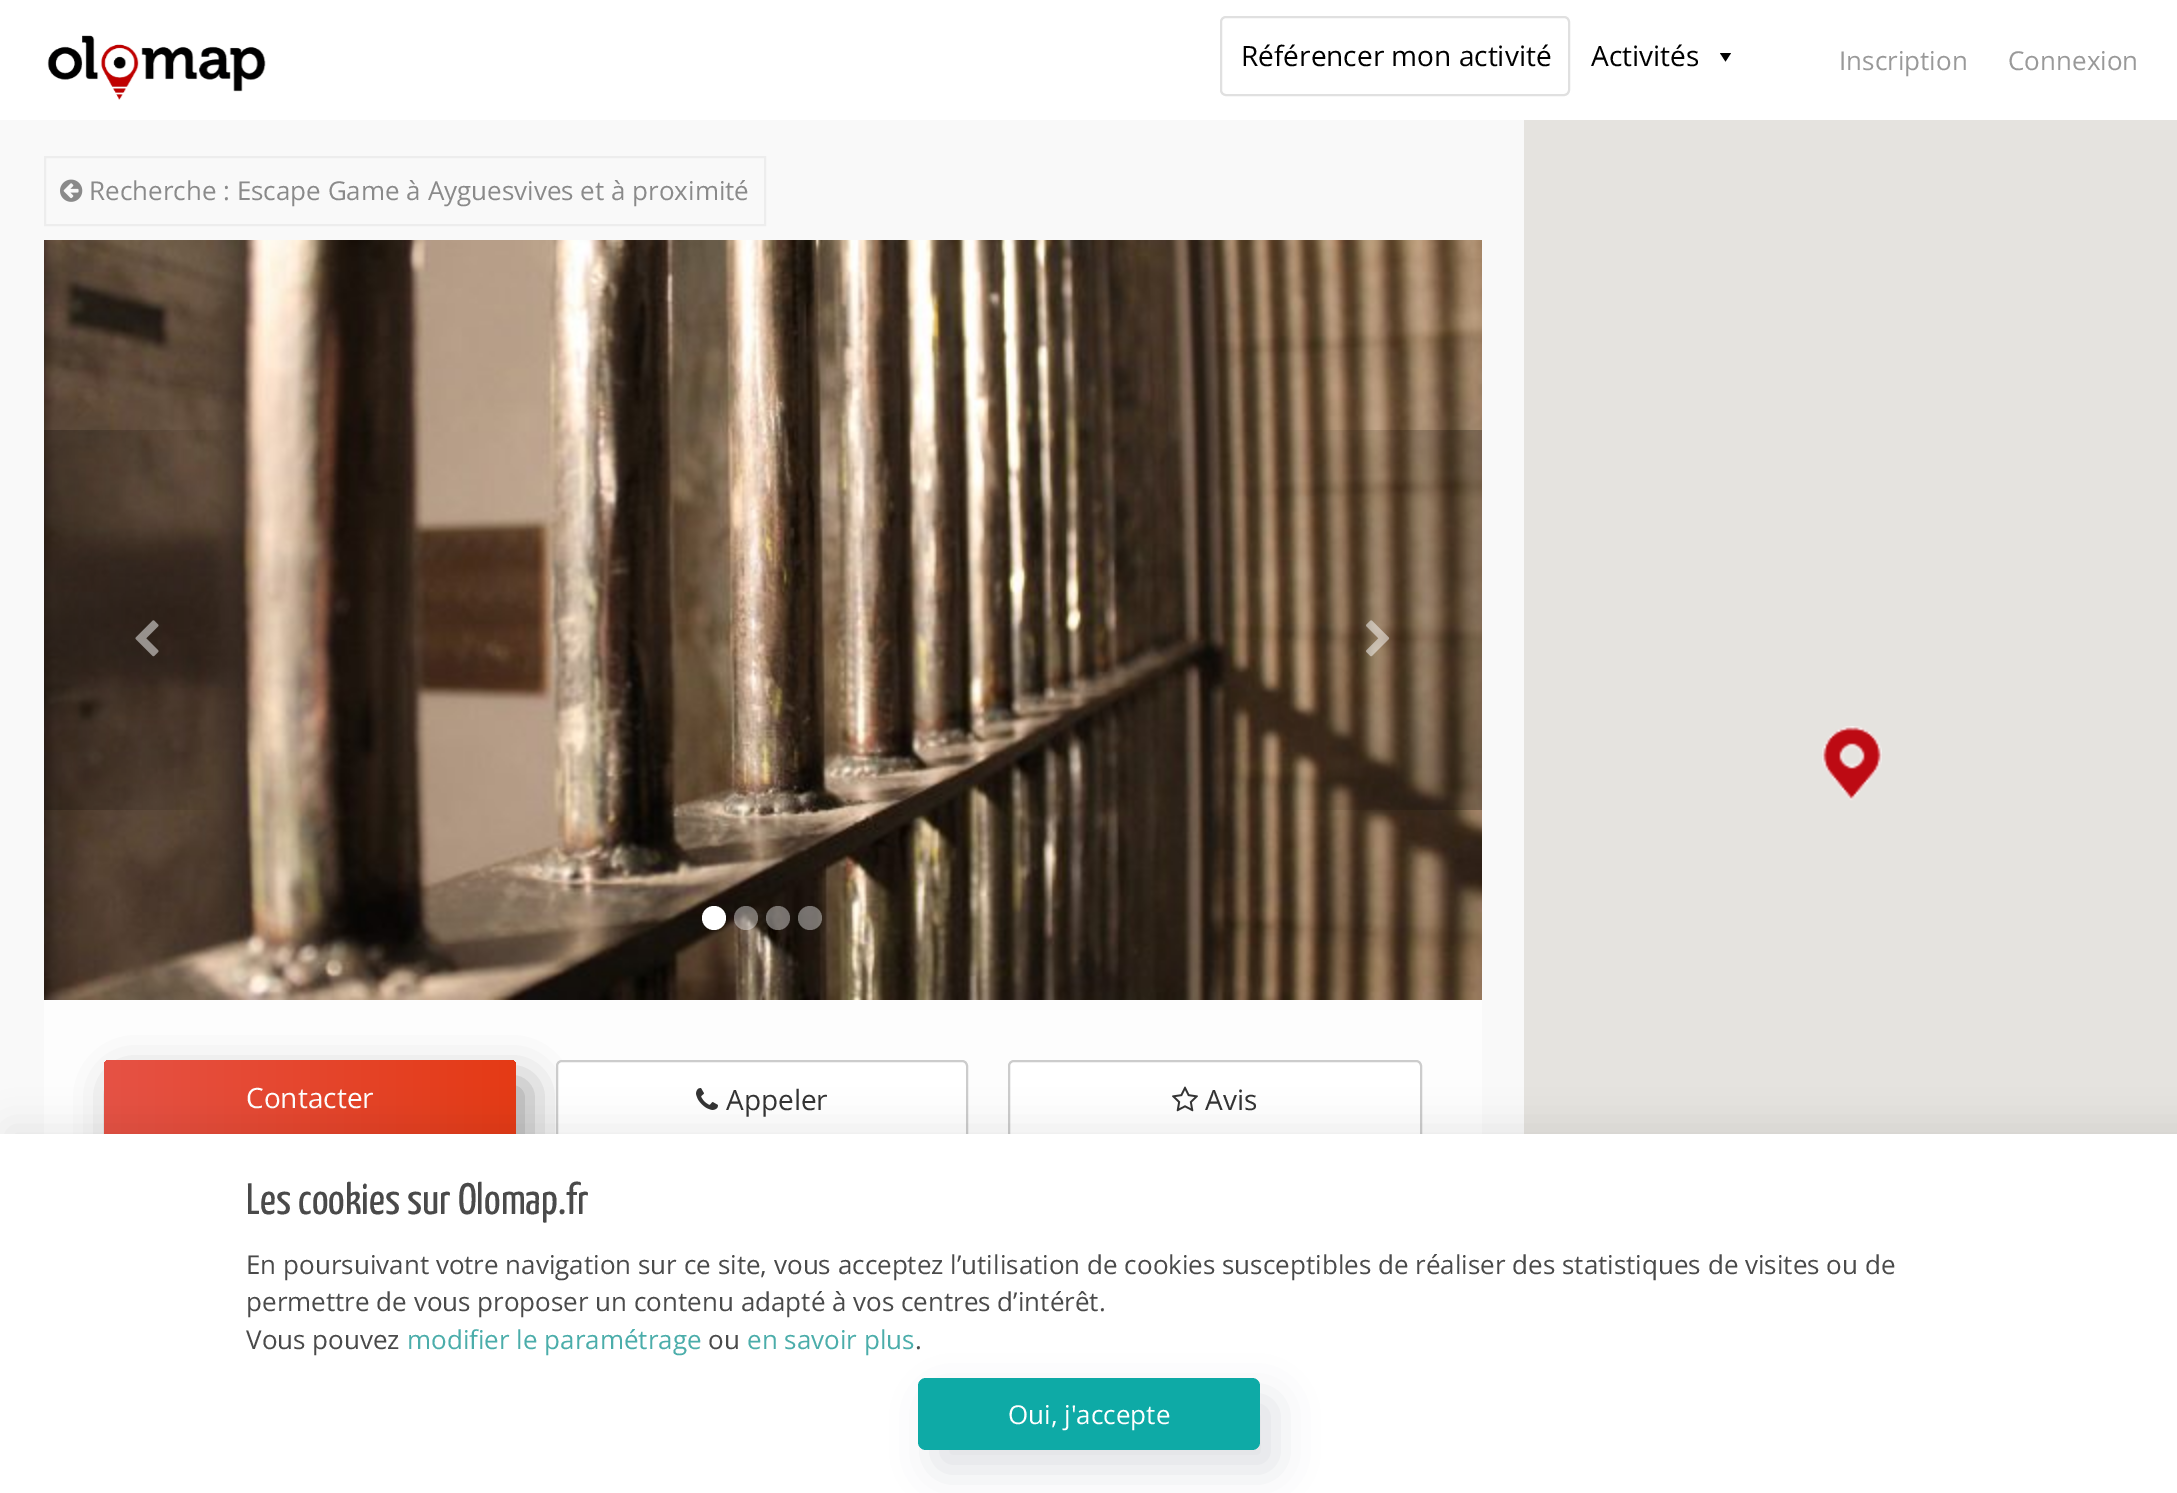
%!PS-Adobe-3.0
%%BoundingBox: 0 0 2177 1493
%%LanguageLevel: 3
%%Pages: 1
%%EndComments
%%BeginProlog
/setink { dup -16 bitshift 255 div exch dup -8 bitshift 255 and 255 div exch 255 and 255 div setrgbcolor } def
/usefont { [ exch dup neg 0 0 3 -1 roll 0 0 ] selectfont } def
/setalpha { dup .setfillconstantalpha .setstrokeconstantalpha } def
/disc { newpath 0 360 arc closepath } def
/rrect { 5 dict begin { /r /h /w /y /x } { exch def } forall
  x r add y moveto x w add y 2 copy h add r arct x w add y h add x 1 index r arct
  x y h add x y r arct x y 2 copy exch w add exch r arct closepath end } def
/softshadow { 12 dict begin { /a /b /q /h /w /y /x } { exch def } forall gsave /was 0 def
  9 -2 -9 { dup b mul 4 div /e exch def 1 sub .425 mul 2.718 exch exp 1 add a .99 .min exch div /now exch def
    1 1 now sub 1 was sub div sub setalpha /was now def
    w h .min e 2 mul add 0 gt { x e sub y e sub w e 2 mul add h e 2 mul add
      q e add b .6 mul add w h .min 2 div e add .min 0 .max rrect fill } if } for grestore end } def
/drawimage { 5 dict begin { /h /w /y /x /name } { exch def } forall
  gsave x y translate w h scale
  w h 8 [w 0 0 h 0 0] name (r) file false 3 colorimage grestore end } def
%%EndProlog
%%BeginSetup
<< /PageSize [2177 1493] /PageUsesTransparency true >> setpagedevice
%%EndSetup
%%Page: 1 1
0 .pushpdf14devicefilter
0 1493 translate 1 -1 scale
4 setmiterlimit
16#F9F9F9 setink
0 0 2177 1493 rectfill
16#FFFFFF setink
0 0 2177 120 rectfill
(img1.raw) 47 35 219 65 drawimage
16#E0E0E0 setink
2 setlinewidth
1221 17 348 78 5 rrect stroke
/OpenSans-Regular 28 usefont
16#000000 setink
1241 66 moveto (Référencer mon activité) show
1591 66 moveto (Activités) show
1731 53 moveto 1725.5 61.5 lineto 1720 53 lineto closepath fill
/OpenSans-Regular 26 usefont
16#999999 setink
1839 70 moveto (Inscription) show
2008 70 moveto (Connexion) show
16#EDEDED setink
45 157 720 68 rectstroke
(img2.raw) 60 179 23 23 drawimage
16#8A8A8A setink
89 200 moveto (Recherche : Escape Game à Ayguesvives et à proximité) show
16#FDFDFD setink
44 1000 1438 134 rectfill
(img3.raw) 44 240 1438 760 drawimage
(img4.raw) 135 620 24 37 drawimage
(img5.raw) 1366 620 24 37 drawimage
16#FFFFFF setink
714 918 12 disc fill
0.4 setalpha
746 918 12 disc fill
778 918 12 disc fill
810 918 12 disc fill
1 setalpha
16#000000 setink
118 1080 412 76 6 20 0.34 softshadow
gsave 104 1060 412 76 6 rrect clip newpath
<< /ShadingType 2 /ColorSpace /DeviceRGB /Coords [104 1098 516 1098] /Extend [true true] /Function << /FunctionType 2 /Domain [0 1] /C0 [0.902 0.322 0.271] /C1 [0.894 0.227 0.082] /N 1 >> >> shfill grestore
/OpenSans-Regular 28 usefont
16#FFFFFF setink
246 1108 moveto (Contacter) show
557 1061 410 78 5 rrect gsave fill grestore
16#CCCCCC setink
stroke
(img6.raw) 696 1088 22 22 drawimage
16#333333 setink
726 1110 moveto (Appeler) show
16#FFFFFF setink
1009 1061 412 78 5 rrect gsave fill grestore
16#CCCCCC setink
stroke
(img7.raw) 1172 1086 26 26 drawimage
16#333333 setink
1205 1110 moveto (Avis) show
16#E5E3DF setink
1524 120 653 1014 rectfill
(img8.raw) 1822 726 60 75 drawimage
16#000000 setink
8 1128 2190 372 0 18 0.08 softshadow
16#FFFFFF setink
0 1134 2177 359 rectfill
/YanoneKaffeesatz-Regular 44 usefont
16#4A4A4A setink
246 1214 moveto (Les cookies sur Olomap.fr) show
/OpenSans-Regular 26 usefont
[
    [(En poursuivant votre navigation sur ce site, vous acceptez l’utilisation de cookies susceptibles de réaliser des statistiques de visites ou de) 246 1274]
    [(permettre de vous proposer un contenu adapté à vos centres d’intérêt.) 246 1311]
    [(Vous pouvez) 246 1349]
] { aload pop moveto show } forall
16#4BADAA setink
407 1349 moveto (modifier le paramétrage) show
16#4A4A4A setink
708 1349 moveto (ou) show
16#4BADAA setink
747 1349 moveto (en savoir plus) show
16#4A4A4A setink
915 1349 moveto (.) show
16#2E3D49 setink
934 1398 342 72 8 20 0.15 softshadow
16#0EAAA6 setink
918 1378 342 72 8 rrect fill
16#FFFFFF setink
1008 1424 moveto (Oui, j'accepte) show
.poppdf14devicefilter showpage
%%EOF
